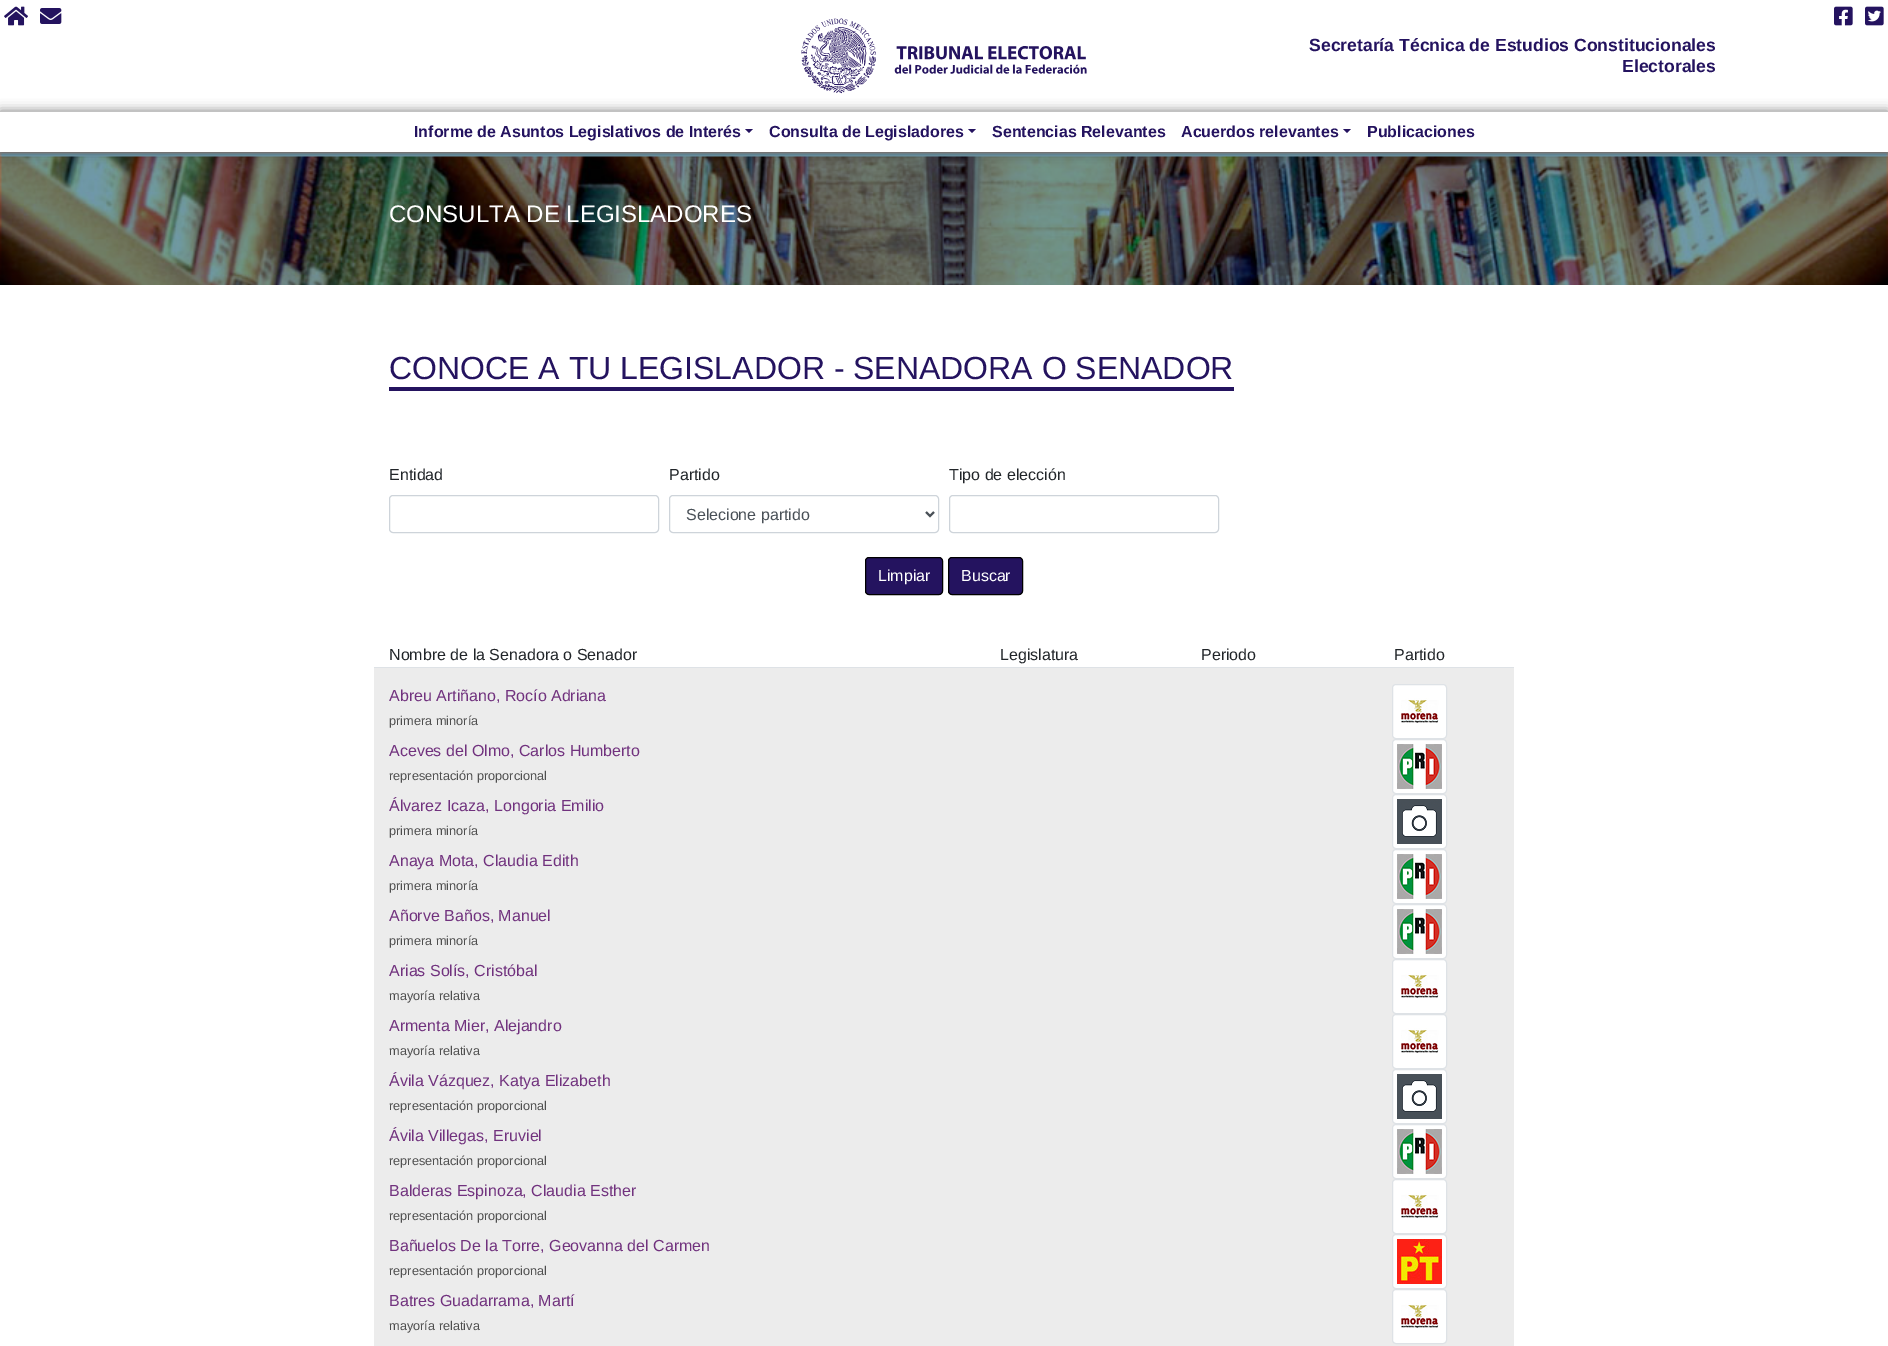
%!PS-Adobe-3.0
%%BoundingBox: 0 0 1888 1346
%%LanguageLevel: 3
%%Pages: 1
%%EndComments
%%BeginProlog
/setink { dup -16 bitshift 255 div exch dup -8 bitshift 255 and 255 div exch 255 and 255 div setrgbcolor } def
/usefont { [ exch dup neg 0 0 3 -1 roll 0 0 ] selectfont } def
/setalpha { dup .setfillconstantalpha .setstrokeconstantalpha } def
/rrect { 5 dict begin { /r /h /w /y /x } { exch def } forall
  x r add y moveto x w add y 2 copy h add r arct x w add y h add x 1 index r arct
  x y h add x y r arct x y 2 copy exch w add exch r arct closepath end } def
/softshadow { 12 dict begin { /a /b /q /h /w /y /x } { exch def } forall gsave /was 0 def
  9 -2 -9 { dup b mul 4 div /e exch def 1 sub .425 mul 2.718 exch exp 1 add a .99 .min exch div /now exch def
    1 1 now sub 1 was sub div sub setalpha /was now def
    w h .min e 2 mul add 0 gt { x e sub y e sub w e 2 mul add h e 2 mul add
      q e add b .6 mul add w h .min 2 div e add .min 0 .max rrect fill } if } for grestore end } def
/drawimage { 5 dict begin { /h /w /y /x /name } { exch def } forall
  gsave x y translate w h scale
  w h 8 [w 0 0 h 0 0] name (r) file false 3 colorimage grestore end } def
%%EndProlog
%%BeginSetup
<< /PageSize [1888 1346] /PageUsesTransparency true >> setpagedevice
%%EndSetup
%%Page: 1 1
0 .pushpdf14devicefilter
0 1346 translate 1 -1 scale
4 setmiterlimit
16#FFFFFF setink
0 0 1888 1346 rectfill
(img1.raw) 4 6 24 20 drawimage
(img2.raw) 40 8 22 16 drawimage
(img3.raw) 1834 6 19 20 drawimage
(img4.raw) 1865 6 19 20 drawimage
(img5.raw) 801 18 286 76 drawimage
/LiberationSans-Bold 17.6 usefont
16#24135F setink
1309 51 moveto (Secretaría Técnica de Estudios Constitucionales) show
1622 72 moveto (Electorales) show
(img6.raw) 0 152 1888 133 drawimage
gsave
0 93 moveto 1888 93 lineto 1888 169 lineto 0 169 lineto closepath 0 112 moveto 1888 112 lineto 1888 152 lineto 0 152 lineto closepath eoclip newpath
16#000000 setink
0 111 1888 40 0 5.5 0.47 softshadow
grestore
/LiberationSans-Bold 16 usefont
414 137 moveto (Informe de Asuntos Legislativos de Interés) show
745 129 moveto 753 129 lineto 749 133 lineto closepath fill
769 137 moveto (Consulta de Legisladores) show
968 129 moveto 976 129 lineto 972 133 lineto closepath fill
992 137 moveto (Sentencias Relevantes) show
1181 137 moveto (Acuerdos relevantes) show
1343 129 moveto 1351 129 lineto 1347 133 lineto closepath fill
1367 137 moveto (Publicaciones) show
/LiberationSans-Regular 24 usefont
16#FFFFFF setink
389 222 moveto (CONSULTA DE LEGISLADORES) show
16#24135F setink
389 387 845 4 rectfill
/LiberationSans-Regular 32 usefont
389 379 moveto (CONOCE A TU LEGISLADOR - SENADORA O SENADOR) show
/LiberationSans-Regular 16 usefont
16#212529 setink
389 480 moveto (Entidad) show
16#CED4DA setink
389.5 495.5 269 37 3.5 rrect stroke
16#212529 setink
669 480 moveto (Partido) show
16#CED4DA setink
669.5 495.5 269 37 3.5 rrect stroke
16#495057 setink
2 setlinewidth
926 512 moveto 930 516 lineto 934 512 lineto stroke
686 520 moveto (Selecione partido) show
16#212529 setink
949 480 moveto (Tipo de elección) show
16#CED4DA setink
1 setlinewidth
949.5 495.5 269 37 3.5 rrect stroke
16#24135F setink
865.5 557.5 77 37 3.5 rrect gsave fill grestore
16#000000 setink
stroke
16#FFFFFF setink
878 581 moveto (Limpiar) show
16#24135F setink
948.5 557.5 74 37 3.5 rrect gsave fill grestore
16#000000 setink
stroke
16#FFFFFF setink
961 581 moveto (Buscar) show
16#212529 setink
[
    [(Nombre de la Senadora o Senador) 389 660]
    [(Legislatura) 1000 660]
    [(Periodo) 1201 660]
    [(Partido) 1394 660]
] { aload pop moveto show } forall
16#ECECEC setink
374 668 1140 678 rectfill
16#DEE2E6 setink
374 667 1140 1 rectfill
16#71327E setink
389 701 moveto (Abreu Artiñano, Rocío Adriana) show
/LiberationSans-Regular 12.75 usefont
16#4E4E4E setink
389 725 moveto (primera minoría) show
16#FFFFFF setink
1392.5 684.5 54 54 3.5 rrect gsave fill grestore
16#DEE2E6 setink
stroke
(img7.raw) 1401 698 38 25 drawimage
/LiberationSans-Regular 16 usefont
16#71327E setink
389 756 moveto (Aceves del Olmo, Carlos Humberto) show
/LiberationSans-Regular 12.75 usefont
16#4E4E4E setink
389 780 moveto (representación proporcional) show
16#FFFFFF setink
1392.5 739.5 54 54 3.5 rrect gsave fill grestore
16#DEE2E6 setink
stroke
(img8.raw) 1397 744 45 45 drawimage
/LiberationSans-Regular 16 usefont
16#71327E setink
389 811 moveto (Álvarez Icaza, Longoria Emilio) show
/LiberationSans-Regular 12.75 usefont
16#4E4E4E setink
389 835 moveto (primera minoría) show
16#FFFFFF setink
1392.5 794.5 54 54 3.5 rrect gsave fill grestore
16#DEE2E6 setink
stroke
(img9.raw) 1397 799 45 45 drawimage
/LiberationSans-Regular 16 usefont
16#71327E setink
389 866 moveto (Anaya Mota, Claudia Edith) show
/LiberationSans-Regular 12.75 usefont
16#4E4E4E setink
389 890 moveto (primera minoría) show
16#FFFFFF setink
1392.5 849.5 54 54 3.5 rrect gsave fill grestore
16#DEE2E6 setink
stroke
(img8.raw) 1397 854 45 45 drawimage
/LiberationSans-Regular 16 usefont
16#71327E setink
389 921 moveto (Añorve Baños, Manuel) show
/LiberationSans-Regular 12.75 usefont
16#4E4E4E setink
389 945 moveto (primera minoría) show
16#FFFFFF setink
1392.5 904.5 54 54 3.5 rrect gsave fill grestore
16#DEE2E6 setink
stroke
(img8.raw) 1397 909 45 45 drawimage
/LiberationSans-Regular 16 usefont
16#71327E setink
389 976 moveto (Arias Solís, Cristóbal) show
/LiberationSans-Regular 12.75 usefont
16#4E4E4E setink
389 1000 moveto (mayoría relativa) show
16#FFFFFF setink
1392.5 959.5 54 54 3.5 rrect gsave fill grestore
16#DEE2E6 setink
stroke
(img7.raw) 1401 973 38 25 drawimage
/LiberationSans-Regular 16 usefont
16#71327E setink
389 1031 moveto (Armenta Mier, Alejandro) show
/LiberationSans-Regular 12.75 usefont
16#4E4E4E setink
389 1055 moveto (mayoría relativa) show
16#FFFFFF setink
1392.5 1014.5 54 54 3.5 rrect gsave fill grestore
16#DEE2E6 setink
stroke
(img7.raw) 1401 1028 38 25 drawimage
/LiberationSans-Regular 16 usefont
16#71327E setink
389 1086 moveto (Ávila Vázquez, Katya Elizabeth) show
/LiberationSans-Regular 12.75 usefont
16#4E4E4E setink
389 1110 moveto (representación proporcional) show
16#FFFFFF setink
1392.5 1069.5 54 54 3.5 rrect gsave fill grestore
16#DEE2E6 setink
stroke
(img9.raw) 1397 1074 45 45 drawimage
/LiberationSans-Regular 16 usefont
16#71327E setink
389 1141 moveto (Ávila Villegas, Eruviel) show
/LiberationSans-Regular 12.75 usefont
16#4E4E4E setink
389 1165 moveto (representación proporcional) show
16#FFFFFF setink
1392.5 1124.5 54 54 3.5 rrect gsave fill grestore
16#DEE2E6 setink
stroke
(img8.raw) 1397 1129 45 45 drawimage
/LiberationSans-Regular 16 usefont
16#71327E setink
389 1196 moveto (Balderas Espinoza, Claudia Esther) show
/LiberationSans-Regular 12.75 usefont
16#4E4E4E setink
389 1220 moveto (representación proporcional) show
16#FFFFFF setink
1392.5 1179.5 54 54 3.5 rrect gsave fill grestore
16#DEE2E6 setink
stroke
(img7.raw) 1401 1193 38 25 drawimage
/LiberationSans-Regular 16 usefont
16#71327E setink
389 1251 moveto (Bañuelos De la Torre, Geovanna del Carmen) show
/LiberationSans-Regular 12.75 usefont
16#4E4E4E setink
389 1275 moveto (representación proporcional) show
16#FFFFFF setink
1392.5 1234.5 54 54 3.5 rrect gsave fill grestore
16#DEE2E6 setink
stroke
(img10.raw) 1397 1239 45 45 drawimage
/LiberationSans-Regular 16 usefont
16#71327E setink
389 1306 moveto (Batres Guadarrama, Martí) show
/LiberationSans-Regular 12.75 usefont
16#4E4E4E setink
389 1330 moveto (mayoría relativa) show
16#FFFFFF setink
1392.5 1289.5 54 54 3.5 rrect gsave fill grestore
16#DEE2E6 setink
stroke
(img7.raw) 1401 1303 38 25 drawimage
.poppdf14devicefilter showpage
%%EOF
